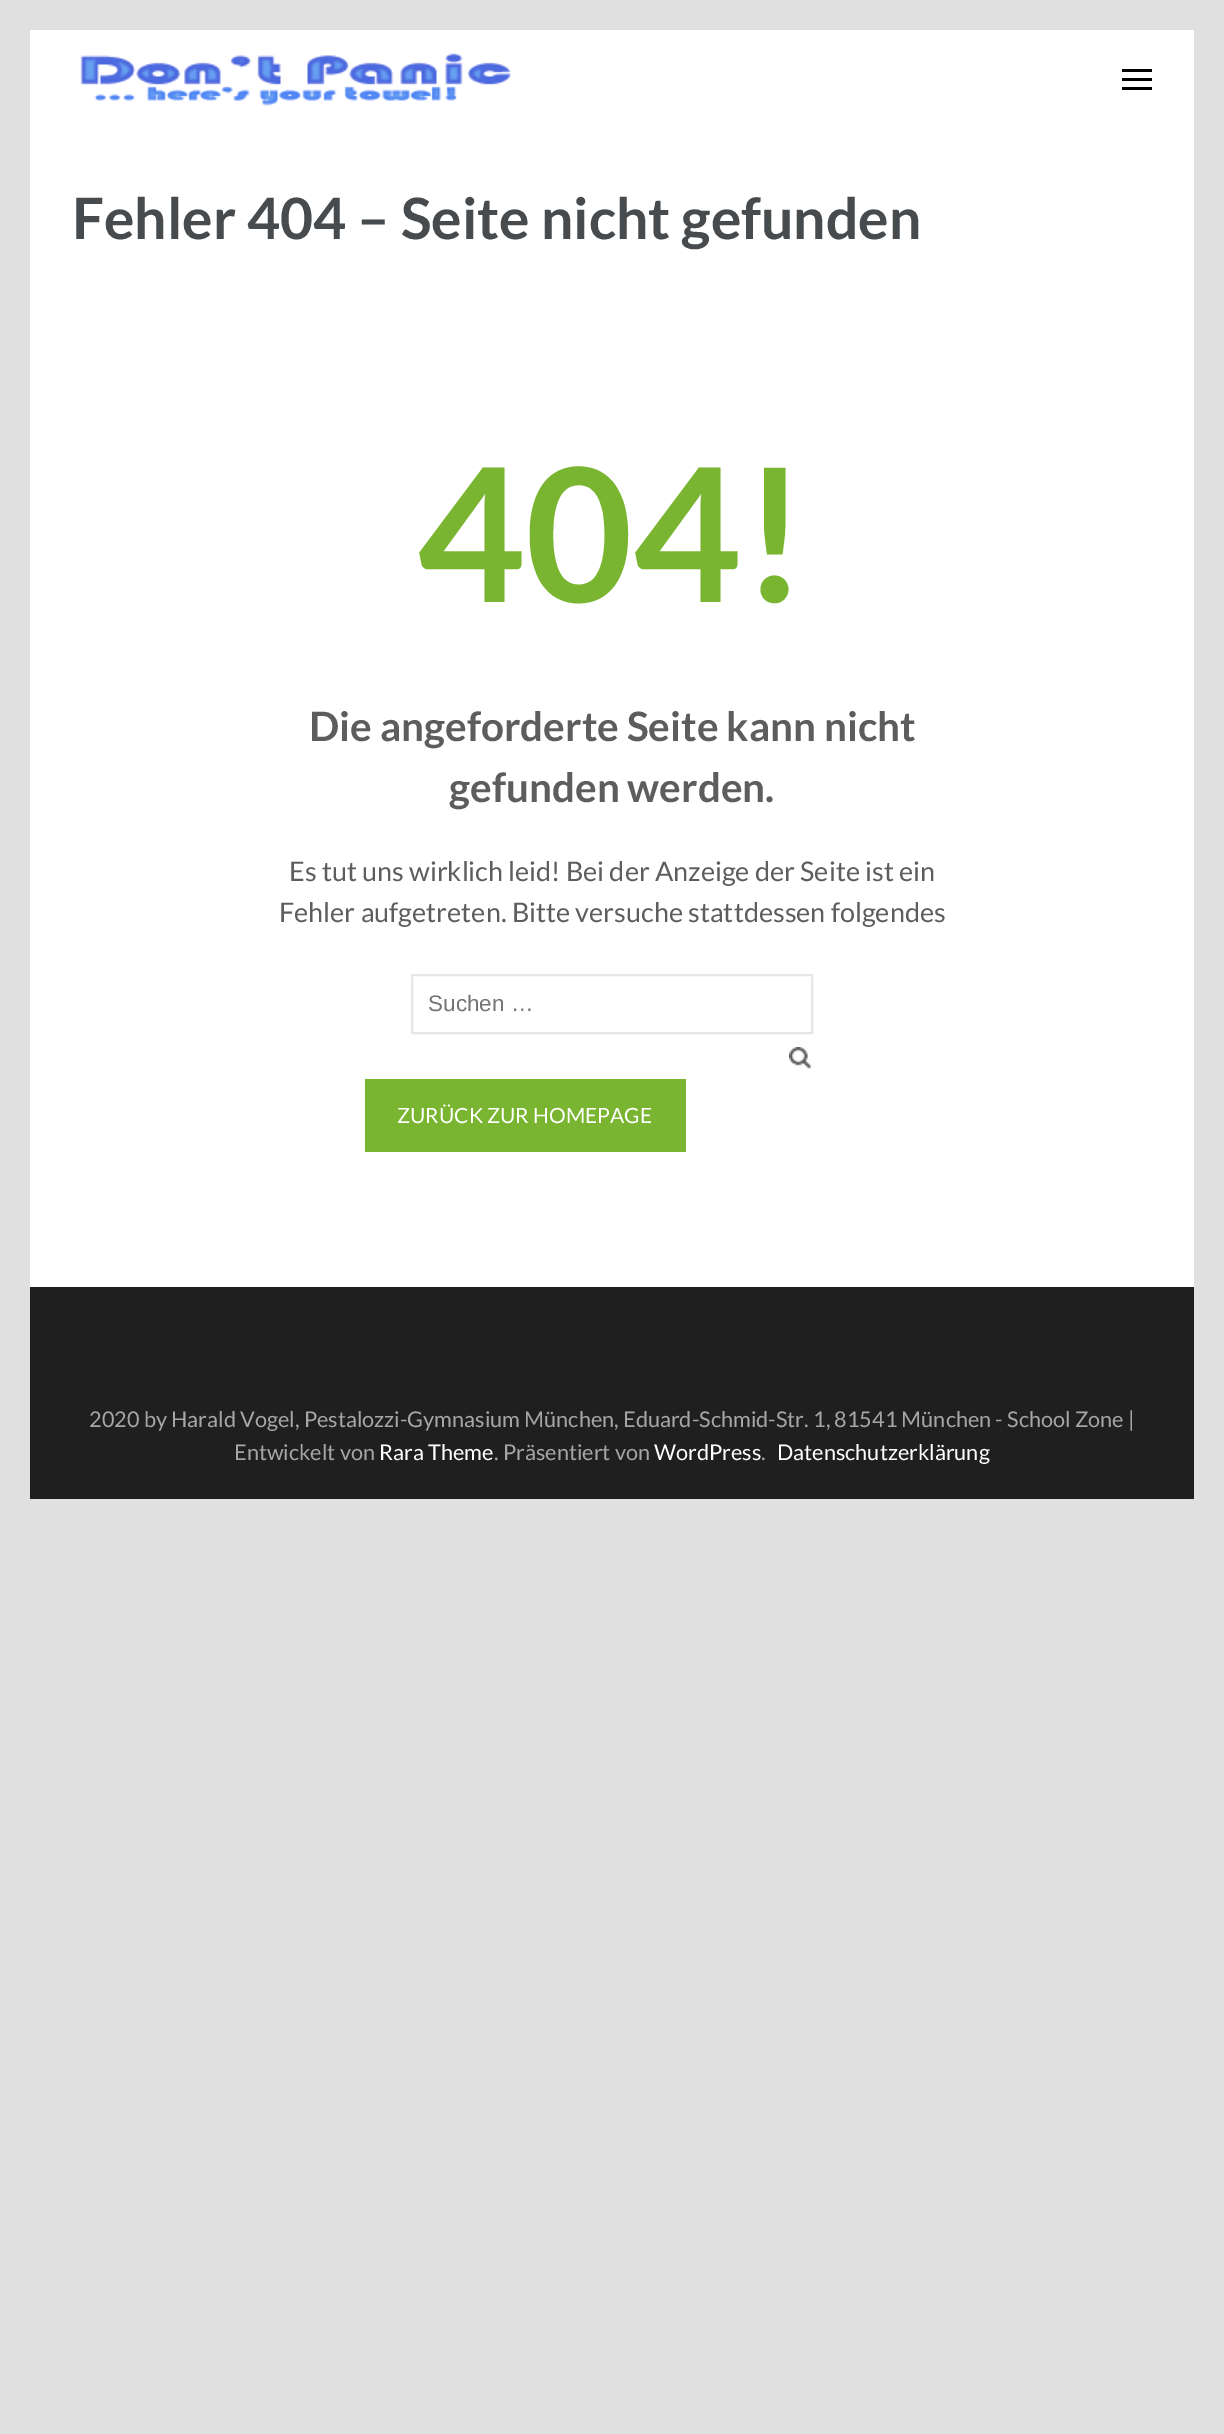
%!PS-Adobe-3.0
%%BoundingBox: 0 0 1224 2434
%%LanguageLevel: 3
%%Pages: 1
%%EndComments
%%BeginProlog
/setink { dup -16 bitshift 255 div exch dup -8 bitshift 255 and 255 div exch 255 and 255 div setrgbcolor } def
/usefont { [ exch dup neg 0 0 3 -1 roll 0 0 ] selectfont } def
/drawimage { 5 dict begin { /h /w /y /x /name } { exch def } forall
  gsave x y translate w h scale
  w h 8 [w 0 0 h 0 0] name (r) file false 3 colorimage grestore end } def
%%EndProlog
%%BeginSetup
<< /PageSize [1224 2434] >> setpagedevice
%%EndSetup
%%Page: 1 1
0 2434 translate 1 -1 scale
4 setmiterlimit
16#E0E0E0 setink
0 0 1224 2434 rectfill
16#FFFFFF setink
30 30 1164 1257 rectfill
(img1.raw) 80 53 431 53 drawimage
[
    [1122 69 30 3 16#000000]
    [1122 78 30 3 16#000000]
    [1122 87 30 3 16#000000]
] { aload pop setink rectfill } forall
/Lato-Bold 57 usefont
16#474B4E setink
72 239 moveto (Fehler 404 – Seite nicht gefunden) show
/Lato-Bold 186 usefont
16#79B530 setink
417 602 moveto (404!) show
/Lato-Bold 40.5 usefont
16#5D5D5D setink
309 741 moveto (Die angeforderte Seite kann nicht) show
449 802 moveto (gefunden werden.) show
/Lato-Regular 27 usefont
289 881 moveto (Es tut uns wirklich leid! Bei der Anzeige der Seite ist ein) show
279 922 moveto (Fehler aufgetreten. Bitte versuche stattdessen folgendes) show
16#E6E6E6 setink
2 setlinewidth
412 975 400 58 rectstroke
/LiberationSans-Regular 22.5 usefont
16#757575 setink
428 1011 moveto (Suchen …) show
(img2.raw) 789 1047 22 22 drawimage
16#79B530 setink
365 1079 321 73 rectfill
/Lato-Regular 21 usefont
16#FFFFFF setink
397 1123 moveto (ZURÜCK ZUR HOMEPAGE) show
16#1F1F1F setink
30 1287 1164 212 rectfill
/Lato-Regular 21.7 usefont
16#A6A6A6 setink
89 1427 moveto (2020 by Harald Vogel, Pestalozzi-Gymnasium München, Eduard-Schmid-Str. 1, 81541 München - School Zone |) show
234 1460 moveto (Entwickelt von) show
16#FFFFFF setink
379 1460 moveto (Rara Theme) show
16#A6A6A6 setink
494 1460 moveto (. Präsentiert von) show
16#FFFFFF setink
654 1460 moveto (WordPress) show
16#A6A6A6 setink
761 1460 moveto (.) show
16#FFFFFF setink
777 1460 moveto (Datenschutzerklärung) show
showpage
%%EOF
